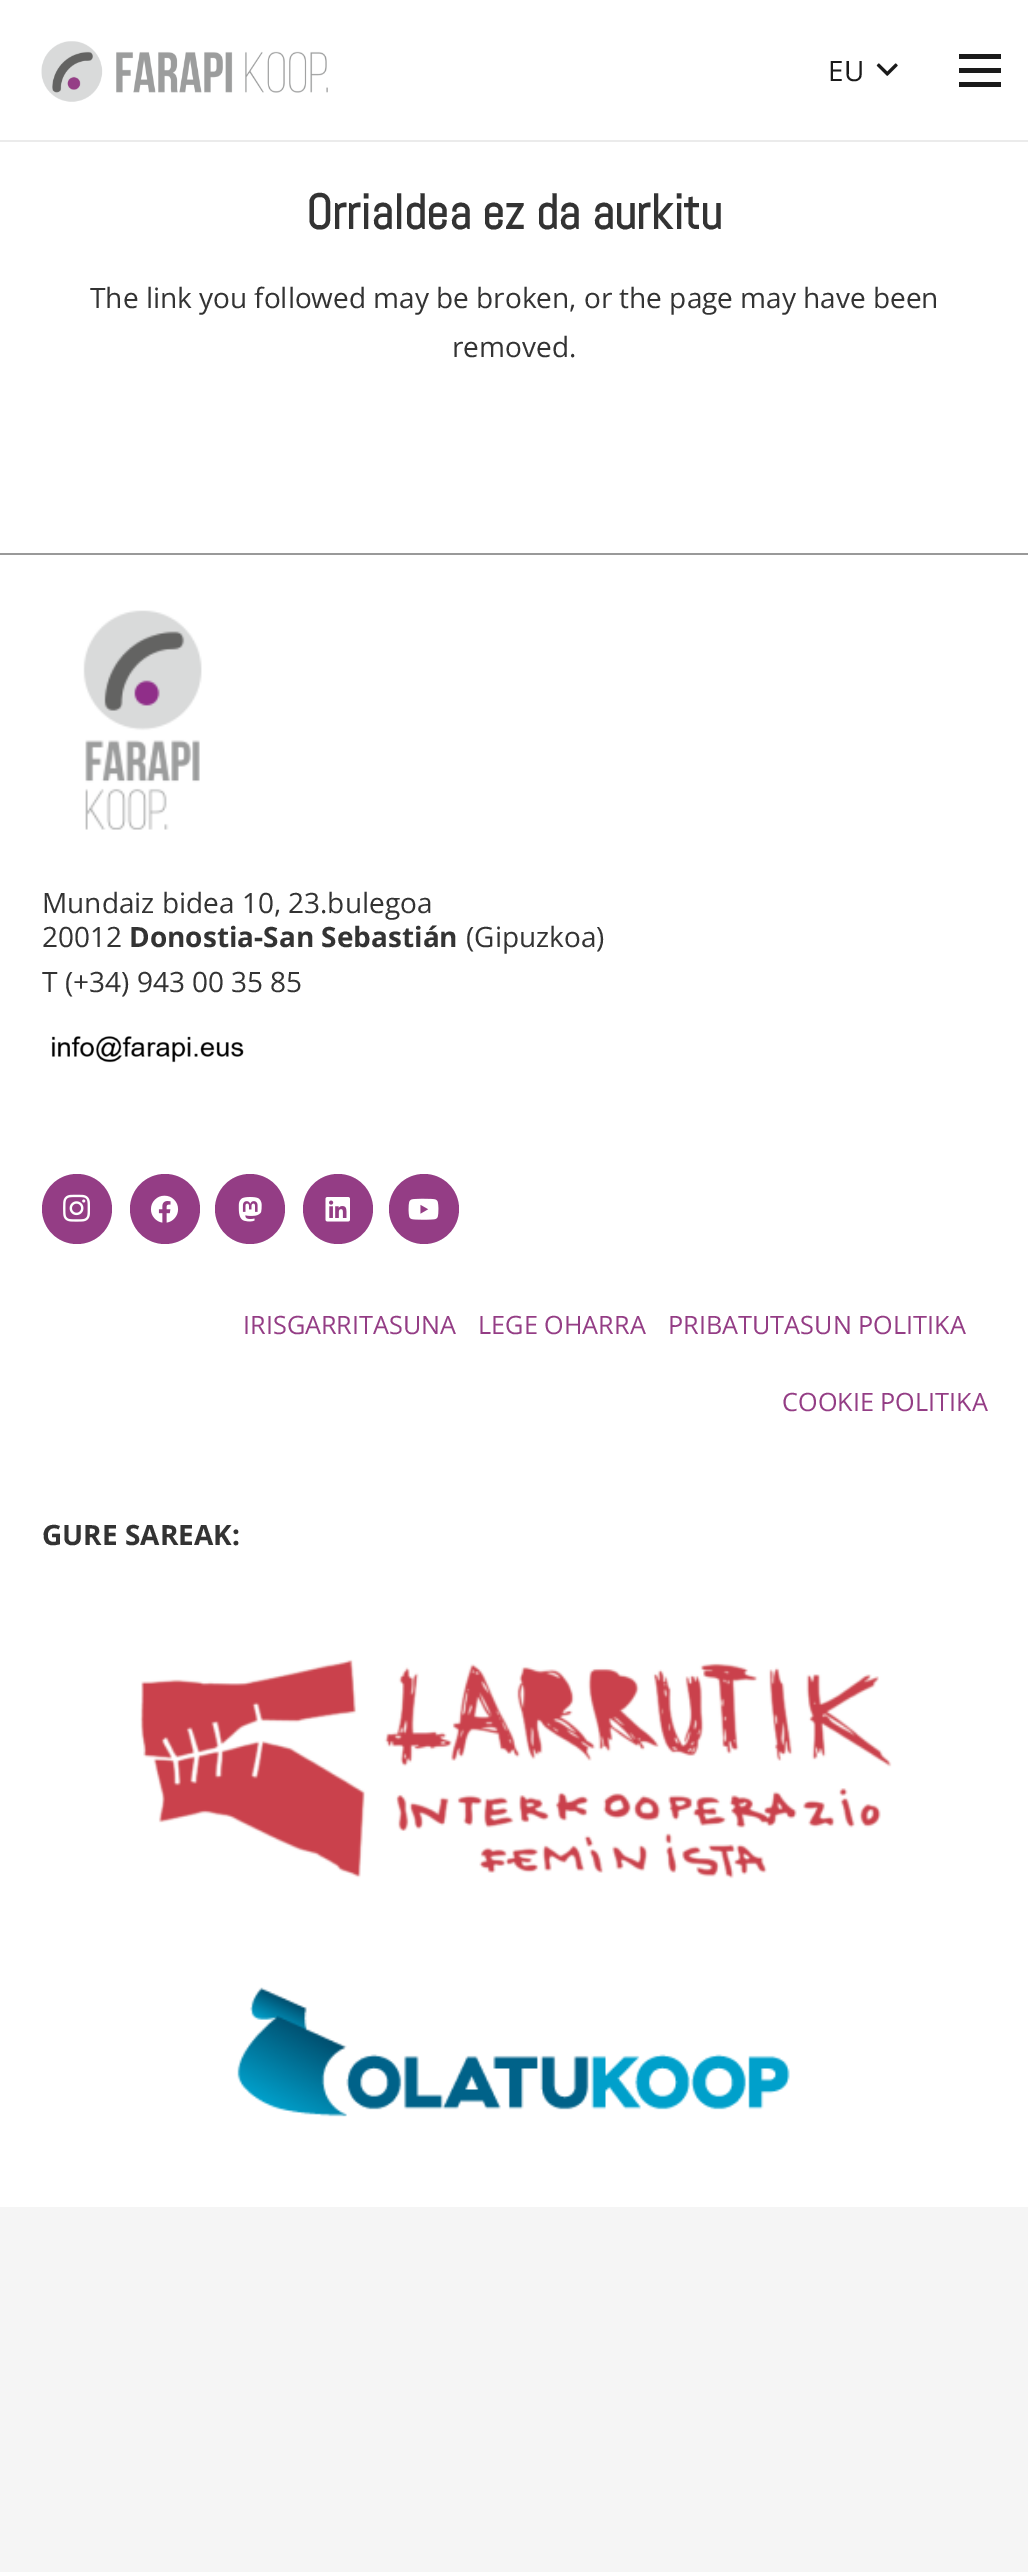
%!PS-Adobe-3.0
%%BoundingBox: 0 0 1028 2572
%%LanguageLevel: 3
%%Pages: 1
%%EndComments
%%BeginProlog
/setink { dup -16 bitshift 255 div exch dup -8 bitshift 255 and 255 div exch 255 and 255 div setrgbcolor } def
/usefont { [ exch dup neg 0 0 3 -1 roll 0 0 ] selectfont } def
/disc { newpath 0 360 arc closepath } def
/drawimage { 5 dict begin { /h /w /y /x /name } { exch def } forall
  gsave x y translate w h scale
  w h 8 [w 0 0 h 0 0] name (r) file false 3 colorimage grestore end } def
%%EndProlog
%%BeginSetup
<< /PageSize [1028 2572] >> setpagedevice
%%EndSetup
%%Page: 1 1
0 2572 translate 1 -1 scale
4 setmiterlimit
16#F5F5F5 setink
0 0 1028 2572 rectfill
16#FFFFFF setink
0 0 1028 2207 rectfill
16#EBEBEB setink
0 140 1028 2 rectfill
(img1.raw) 41 41 287 61 drawimage
/OpenSans-Regular 28 usefont
16#1A1A1A setink
828 81 moveto (EU) show
(img2.raw) 876 63 22 13 drawimage
[
    [959 68 42 5 16#1A1A1A]
    [959 54 42 5 16#1A1A1A]
    [959 82 42 5 16#1A1A1A]
] { aload pop setink rectfill } forall
/Abel-Bold 49 usefont
16#333333 setink
306 229 moveto (Orrialdea ez da aurkitu) show
/OpenSans-Regular 28 usefont
90 308 moveto (The link you followed may be broken, or the page may have been) show
452 357 moveto (removed.) show
16#999999 setink
0 553 1028 2 rectfill
(img3.raw) 83 610 119 220 drawimage
16#333333 setink
42 913 moveto (Mundaiz bidea 10, 23.bulegoa) show
42 947 moveto (20012) show
/OpenSans-Bold 28 usefont
129 947 moveto (Donostia-San Sebastián) show
/OpenSans-Regular 28 usefont
466 947 moveto (\(Gipuzkoa\)) show
42 992 moveto (T \(+34\) 943 00 35 85) show
(img4.raw) 51 1036 193 27 drawimage
16#943D85 setink
77 1209 35 disc fill
(img5.raw) 63 1194 27 28 drawimage
165 1209 35 disc fill
(img6.raw) 150 1195 29 28 drawimage
250 1209 35 disc fill
(img7.raw) 238 1197 24 25 drawimage
338 1209 35 disc fill
(img8.raw) 325 1197 25 25 drawimage
424 1209 35 disc fill
(img9.raw) 408 1198 31 22 drawimage
/OpenSans-Regular 25.25 usefont
[
    [(IRISGARRITASUNA) 243 1334]
    [(LEGE OHARRA) 478 1334]
    [(PRIBATUTASUN POLITIKA) 668 1334]
    [(COOKIE POLITIKA) 782 1411]
] { aload pop moveto show } forall
/OpenSans-Bold 28 usefont
16#333333 setink
42 1545 moveto (GURE SAREAK:) show
(img10.raw) 140 1659 752 220 drawimage
(img11.raw) 237 1987 553 130 drawimage
showpage
%%EOF
